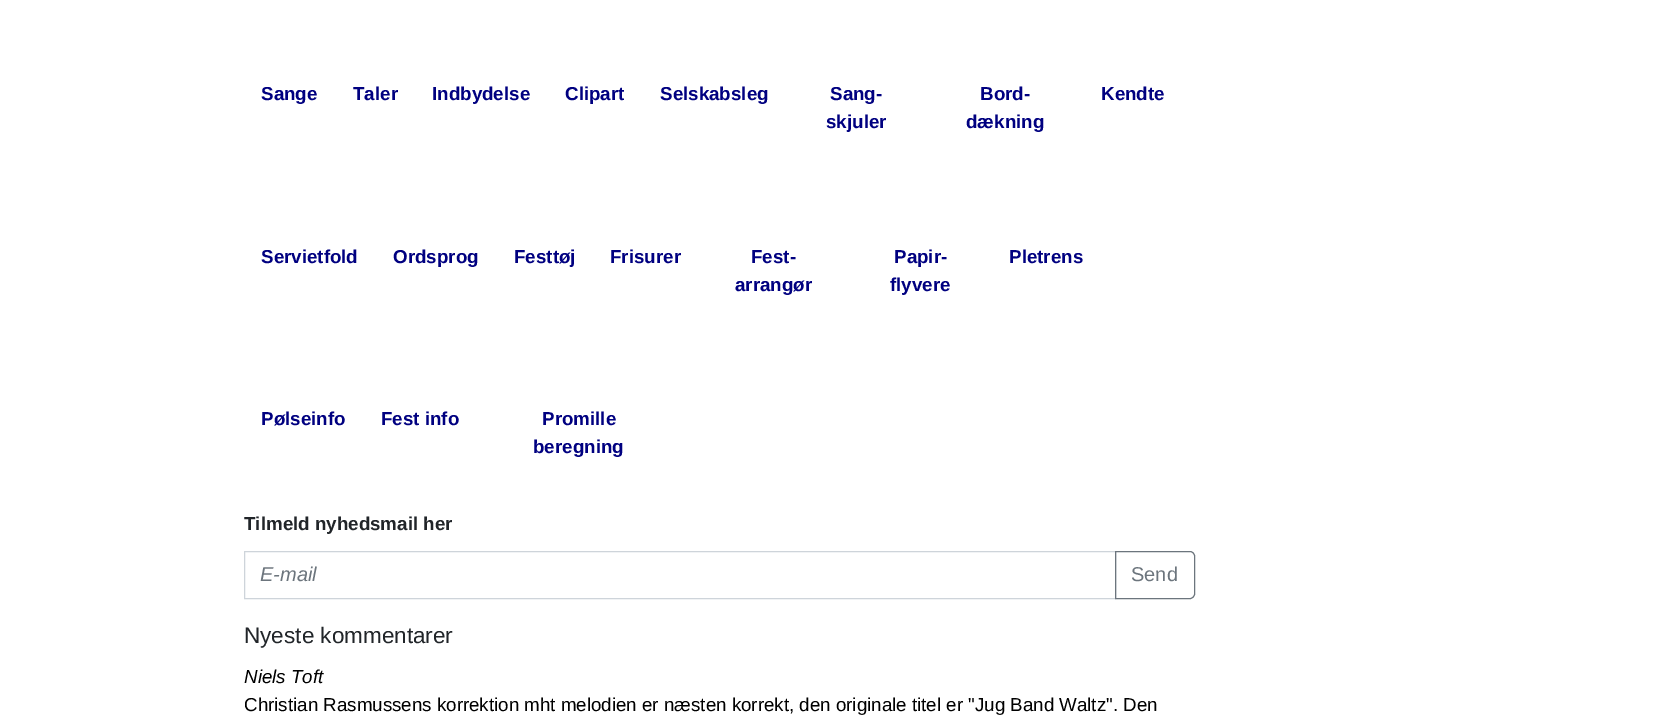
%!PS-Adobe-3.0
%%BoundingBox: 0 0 1680 717
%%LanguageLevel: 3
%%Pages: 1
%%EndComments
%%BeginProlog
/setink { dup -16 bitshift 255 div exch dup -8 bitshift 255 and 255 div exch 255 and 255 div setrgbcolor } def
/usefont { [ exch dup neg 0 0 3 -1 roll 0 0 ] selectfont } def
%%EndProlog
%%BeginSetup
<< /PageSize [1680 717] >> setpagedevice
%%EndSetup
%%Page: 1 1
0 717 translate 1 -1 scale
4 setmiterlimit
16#FFFFFF setink
0 0 1680 717 rectfill
/LiberationSans-Bold 18.75 usefont
16#000080 setink
[
    [(Sange) 261 100]
    [(Taler) 353 100]
    [(Indbydelse) 432 100]
    [(Clipart) 565 100]
    [(Selskabsleg) 660 100]
    [(Sang-) 830 100]
    [(skjuler) 826 128]
    [(Bord-) 980 100]
    [(dækning) 966 128]
    [(Kendte) 1101 100]
    [(Servietfold) 261 263]
    [(Ordsprog) 393 263]
    [(Festtøj) 514 263]
    [(Frisurer) 610 263]
    [(Fest-) 751 263]
    [(arrangør) 735 291]
    [(Papir-) 894 263]
    [(flyvere) 890 291]
    [(Pletrens) 1009 263]
    [(Pølseinfo) 261 425]
    [(Fest info) 381 425]
    [(Promille) 542 425]
    [(beregning) 533 453]
] { aload pop moveto show } forall
16#212529 setink
244 530 moveto (Tilmeld nyhedsmail her) show
16#CED4DA setink
244.5 551.5 871 47 rectstroke
/LiberationSans-Italic 20 usefont
16#6C757D setink
260 581 moveto (E-mail) show
1115.5 551.5 moveto 1190 551.5 lineto 1192.5 551.5 1194.5 553.5 1194.5 556 curveto 1194.5 594 lineto 1194.5 596.5 1192.5 598.5 1190 598.5 curveto 1115.5 598.5 lineto closepath stroke
/LiberationSans-Regular 20 usefont
1131 581 moveto (Send) show
/LiberationSans-Regular 22.5 usefont
16#212529 setink
244 643 moveto (Nyeste kommentarer) show
/LiberationSans-Italic 18.75 usefont
16#000000 setink
244 683 moveto (Niels Toft) show
/LiberationSans-Regular 18.75 usefont
244 711 moveto (Christian Rasmussens korrektion mht melodien er næsten korrekt, den originale titel er "Jug Band Waltz". Den) show
showpage
%%EOF
